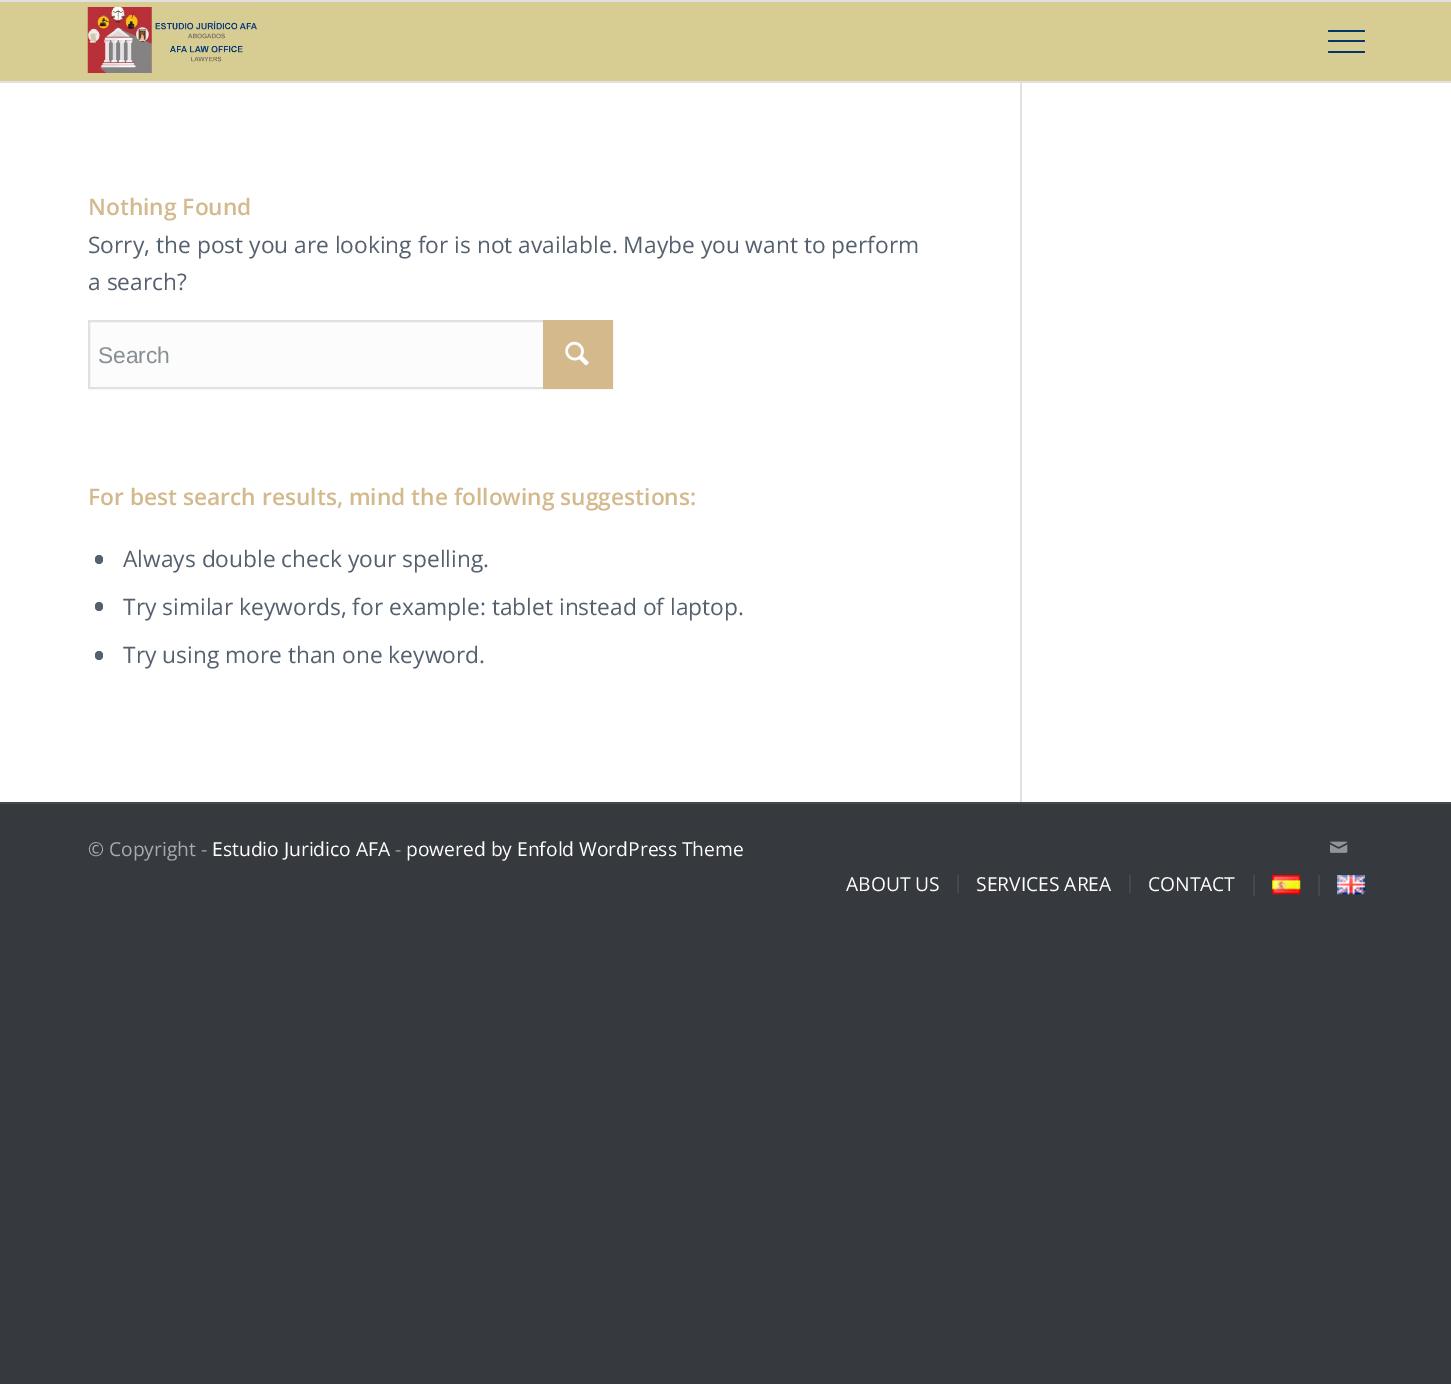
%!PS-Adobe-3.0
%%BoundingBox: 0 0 1451 1384
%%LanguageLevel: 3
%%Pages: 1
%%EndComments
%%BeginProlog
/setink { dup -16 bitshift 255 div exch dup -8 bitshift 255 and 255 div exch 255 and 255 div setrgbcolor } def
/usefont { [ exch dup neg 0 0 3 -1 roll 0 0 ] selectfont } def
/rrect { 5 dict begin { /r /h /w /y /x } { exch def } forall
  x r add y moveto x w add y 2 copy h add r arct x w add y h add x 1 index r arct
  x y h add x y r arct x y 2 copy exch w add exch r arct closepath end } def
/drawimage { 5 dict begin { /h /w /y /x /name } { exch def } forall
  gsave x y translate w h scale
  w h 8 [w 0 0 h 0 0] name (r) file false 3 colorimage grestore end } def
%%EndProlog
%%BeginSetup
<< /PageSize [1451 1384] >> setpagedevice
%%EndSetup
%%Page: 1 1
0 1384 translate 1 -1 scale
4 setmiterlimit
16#36393D setink
0 0 1451 1384 rectfill
[
    [0 0 1451 2 16#E1E1E1]
    [0 83 1451 719 16#FFFFFF]
    [1020 82 2 720 16#E1E1E1]
    [0 81 1451 2 16#E1E1E1]
    [0 2 1451 79 16#D7CD92]
] { aload pop setink rectfill } forall
(img1.raw) 87 1 172 73 drawimage
16#013667 setink
1328 40 37 2 1 rrect fill
1328 30 37 2 1 rrect fill
1328 51 37 2 1 rrect fill
/OpenSans-SemiBold 22.75 usefont
16#D4B98C setink
88 215 moveto (Nothing Found) show
/OpenSans-Regular 22.75 usefont
16#55606E setink
88 253 moveto (Sorry, the post you are looking for is not available. Maybe you want to perform) show
88 290 moveto (a search?) show
16#FCFCFC setink
90 322 453 65 rectfill
16#E1E1E1 setink
2 setlinewidth
89 321 523 67 rectstroke
/LiberationSans-Regular 22.75 usefont
16#889095 setink
98 363 moveto (Search) show
16#D4B98C setink
543 320 70 69 rectfill
(img2.raw) 565 341 24 25 drawimage
/OpenSans-SemiBold 22.75 usefont
88 505 moveto (For best search results, mind the following suggestions:) show
16#55606E setink
95 555 8 9 4 rrect fill
/OpenSans-Regular 22.75 usefont
123 567 moveto (Always double check your spelling.) show
95 602 8 9 4 rrect fill
123 615 moveto (Try similar keywords, for example: tablet instead of laptop.) show
95 651 8 9 4 rrect fill
123 663 moveto (Try using more than one keyword.) show
16#45494D setink
0 802 1451 2 rectfill
/OpenSans-Regular 19.25 usefont
16#A7ABB1 setink
88 856 moveto (© Copyright -) show
16#FFFFFF setink
212 856 moveto (Estudio Juridico AFA) show
16#A7ABB1 setink
395 856 moveto (-) show
16#FFFFFF setink
406 856 moveto (powered by Enfold WordPress Theme) show
(img3.raw) 1330 841 18 12 drawimage
846 891 moveto (ABOUT US) show
16#45494D setink
957 875 2 18 rectfill
16#FFFFFF setink
976 891 moveto (SERVICES AREA) show
16#45494D setink
1129 875 2 18 rectfill
16#FFFFFF setink
1148 891 moveto (CONTACT) show
16#45494D setink
1253 875 2 21 rectfill
(img4.raw) 1272 875 29 20 drawimage
1318 875 2 21 rectfill
(img5.raw) 1337 875 28 20 drawimage
showpage
%%EOF
